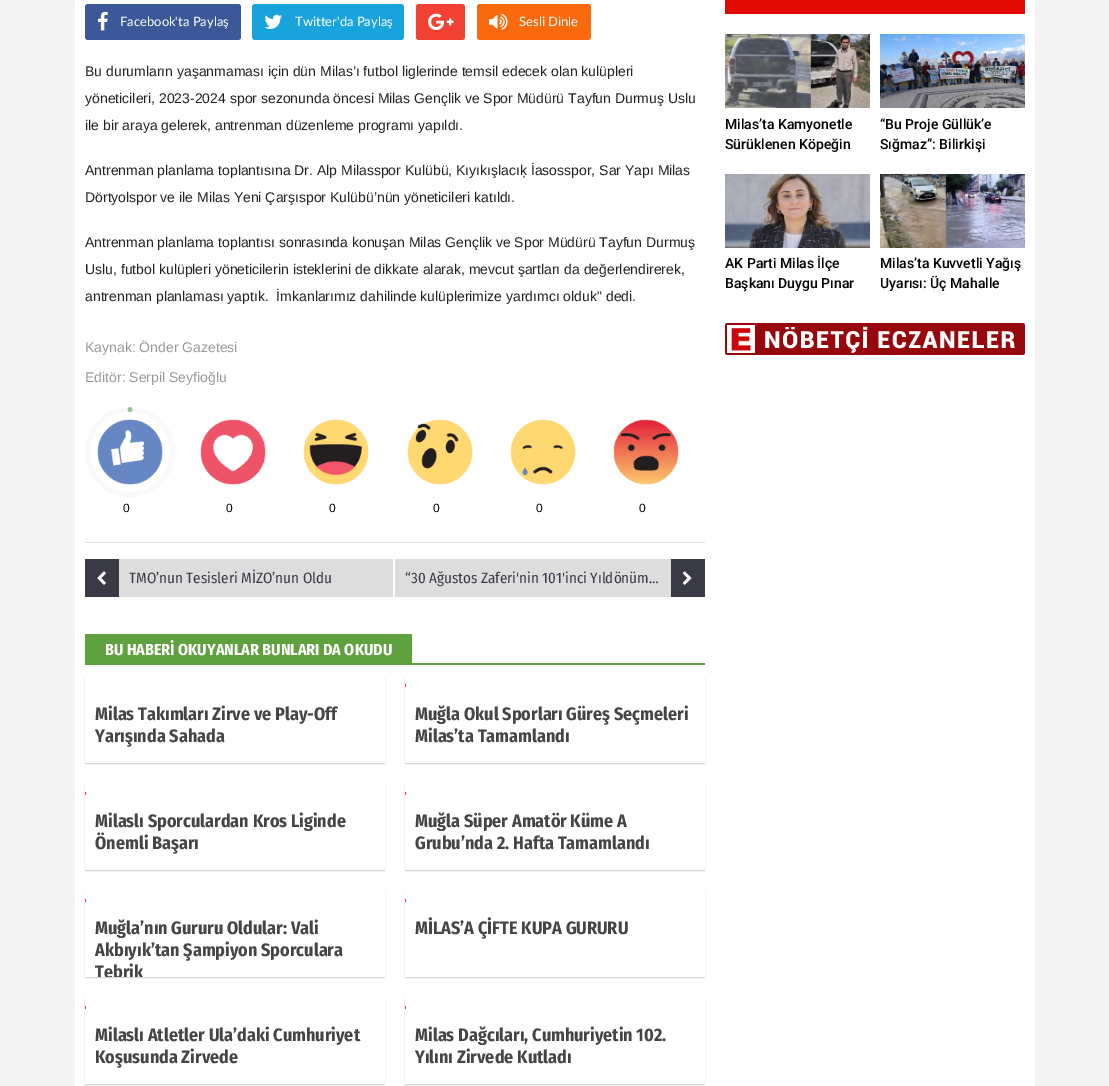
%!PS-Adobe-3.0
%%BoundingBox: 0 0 1109 1086
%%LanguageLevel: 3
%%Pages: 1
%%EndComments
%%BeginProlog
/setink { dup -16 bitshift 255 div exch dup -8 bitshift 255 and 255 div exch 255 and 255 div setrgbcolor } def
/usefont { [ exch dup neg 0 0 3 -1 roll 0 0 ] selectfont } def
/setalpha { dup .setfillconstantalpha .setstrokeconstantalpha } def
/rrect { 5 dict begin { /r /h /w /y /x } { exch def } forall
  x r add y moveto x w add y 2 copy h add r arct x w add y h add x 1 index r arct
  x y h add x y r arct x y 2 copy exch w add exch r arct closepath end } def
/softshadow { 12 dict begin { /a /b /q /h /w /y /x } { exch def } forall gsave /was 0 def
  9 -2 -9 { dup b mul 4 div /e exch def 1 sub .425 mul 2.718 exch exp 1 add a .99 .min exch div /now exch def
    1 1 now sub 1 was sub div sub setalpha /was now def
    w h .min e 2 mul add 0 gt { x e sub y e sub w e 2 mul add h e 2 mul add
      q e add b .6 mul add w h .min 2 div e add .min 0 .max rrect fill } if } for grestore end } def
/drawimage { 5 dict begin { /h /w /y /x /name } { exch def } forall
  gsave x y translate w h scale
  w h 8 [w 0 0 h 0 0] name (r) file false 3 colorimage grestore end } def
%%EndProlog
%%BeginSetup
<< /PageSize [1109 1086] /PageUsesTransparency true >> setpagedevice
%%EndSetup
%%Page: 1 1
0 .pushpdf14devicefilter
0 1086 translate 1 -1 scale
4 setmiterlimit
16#F4F4F4 setink
0 0 1109 1086 rectfill
16#FFFFFF setink
75 0 960 1086 rectfill
16#3B5998 setink
85 4 156 36 3 rrect fill
(img1.raw) 98 11 10 20 drawimage
/Lato-Regular 13 usefont
16#FFFFFF setink
120 26 moveto (Facebook'ta Paylaş) show
16#18A3DD setink
252 4 152 36 3 rrect fill
(img2.raw) 264 14 18 15 drawimage
16#FFFFFF setink
295 26 moveto (Twitter'da Paylaş) show
16#F14133 setink
416 4 49 36 3 rrect fill
(img3.raw) 428 13 26 17 drawimage
16#F9690E setink
477 4 114 36 3 rrect fill
(img4.raw) 489 13 19 17 drawimage
16#FFFFFF setink
519 26 moveto (Sesli Dinle) show
/LiberationSans-Regular 14 usefont
16#222222 setink
[
    [(Bu durumların yaşanmaması için dün Milas’ı futbol liglerinde temsil edecek olan kulüpleri) 85 76]
    [(yöneticileri, 2023-2024 spor sezonunda öncesi Milas Gençlik ve Spor Müdürü Tayfun Durmuş Uslu) 85 103]
    [(ile bir araya gelerek, antrenman düzenleme programı yapıldı.) 85 130]
    [(Antrenman planlama toplantısına Dr. Alp Milasspor Kulübü, Kıyıkışlacıķ İasosspor, Sar Yapı Milas) 85 175]
    [(Dörtyolspor ve ile Milas Yeni Çarşıspor Kulübü’nün yöneticileri katıldı.) 85 202]
    [(Antrenman planlama toplantısı sonrasında konuşan Milas Gençlik ve Spor Müdürü Tayfun Durmuş) 85 247]
    [(Uslu, futbol kulüpleri yöneticilerin isteklerini de dikkate alarak, mevcut şartları da değerlendirerek,) 85 274]
    [(antrenman planlaması yaptık.  İmkanlarımız dahilinde kulüplerimize yardımcı olduk" dedi.) 85 301]
] { aload pop moveto show } forall
16#999999 setink
85 352 moveto (Kaynak: Önder Gazetesi) show
85 382 moveto (Editör: Serpil Seyfioğlu) show
(img6.raw) 97 419 66 66 drawimage
(img5.raw) 85 407 90 90 drawimage
/LiberationSans-Regular 12 usefont
16#000000 setink
123 512 moveto (0) show
(img7.raw) 200 419 66 66 drawimage
226 512 moveto (0) show
(img8.raw) 303 419 66 66 drawimage
329 512 moveto (0) show
(img9.raw) 407 419 66 66 drawimage
433 512 moveto (0) show
(img10.raw) 510 419 66 66 drawimage
536 512 moveto (0) show
(img11.raw) 613 419 66 66 drawimage
639 512 moveto (0) show
[
    [85 542 620 1 16#E2E2E2]
    [119 559 274 38 16#DDDDDD]
    [85 559 34 38 16#3A3A47]
] { aload pop setink rectfill } forall
(img12.raw) 97 571 9 14 drawimage
/FiraSansCondensed-Regular 15 usefont
129 583 moveto (TMO’nun Tesisleri MİZO’nun Oldu) show
16#DDDDDD setink
395 559 276 38 rectfill
16#3A3A47 setink
405 583 moveto (“30 Ağustos Zaferi'nin 101'inci Yıldönüm…) show
671 559 34 38 rectfill
(img13.raw) 682 571 10 14 drawimage
16#5FA03F setink
85 663 620 2 rectfill
85 634 327 29 rectfill
/FiraSansCondensed-Bold 16 usefont
16#FFFFFF setink
105 655 moveto (BU HABERİ OKUYANLAR BUNLARI DA OKUDU) show
gsave
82 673 moveto 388 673 lineto 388 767 lineto 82 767 lineto closepath 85 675 moveto 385 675 lineto 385 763 lineto 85 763 lineto closepath eoclip newpath
16#D3D3D3 setink
85 676 300 88 0 0.5 1 softshadow
grestore
/FiraSansCondensed-Bold 18 usefont
16#454545 setink
95 720 moveto (Milas Takımları Zirve ve Play-Off) show
95 742 moveto (Yarışında Sahada) show
gsave
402 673 moveto 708 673 lineto 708 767 lineto 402 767 lineto closepath 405 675 moveto 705 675 lineto 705 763 lineto 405 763 lineto closepath eoclip newpath
16#D3D3D3 setink
405 676 300 88 0 0.5 1 softshadow
grestore
16#E8393A setink
405 684 1 3 rectfill
16#454545 setink
415 720 moveto (Muğla Okul Sporları Güreş Seçmeleri) show
415 742 moveto (Milas’ta Tamamlandı) show
gsave
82 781 moveto 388 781 lineto 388 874 lineto 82 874 lineto closepath 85 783 moveto 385 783 lineto 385 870 lineto 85 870 lineto closepath eoclip newpath
16#D3D3D3 setink
85 784 300 87 0 0.5 1 softshadow
grestore
16#E8393A setink
85 792 1 3 rectfill
16#454545 setink
95 827 moveto (Milaslı Sporculardan Kros Liginde) show
95 849 moveto (Önemli Başarı) show
gsave
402 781 moveto 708 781 lineto 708 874 lineto 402 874 lineto closepath 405 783 moveto 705 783 lineto 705 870 lineto 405 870 lineto closepath eoclip newpath
16#D3D3D3 setink
405 784 300 87 0 0.5 1 softshadow
grestore
16#E8393A setink
405 792 1 3 rectfill
16#454545 setink
415 827 moveto (Muğla Süper Amatör Küme A) show
415 849 moveto (Grubu’nda 2. Hafta Tamamlandı) show
gsave
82 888 moveto 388 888 lineto 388 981 lineto 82 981 lineto closepath 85 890 moveto 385 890 lineto 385 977 lineto 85 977 lineto closepath eoclip newpath
16#D3D3D3 setink
85 891 300 87 0 0.5 1 softshadow
grestore
16#E8393A setink
85 899 1 3 rectfill
16#454545 setink
95 934 moveto (Muğla’nın Gururu Oldular: Vali) show
95 956 moveto (Akbıyık’tan Şampiyon Sporculara) show
gsave
85 907 300 70 rectclip
95 978 moveto (Tebrik) show
grestore
gsave
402 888 moveto 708 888 lineto 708 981 lineto 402 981 lineto closepath 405 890 moveto 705 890 lineto 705 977 lineto 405 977 lineto closepath eoclip newpath
16#D3D3D3 setink
405 891 300 87 0 0.5 1 softshadow
grestore
16#E8393A setink
405 899 1 3 rectfill
16#454545 setink
415 934 moveto (MİLAS’A ÇİFTE KUPA GURURU) show
gsave
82 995 moveto 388 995 lineto 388 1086 lineto 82 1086 lineto closepath 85 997 moveto 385 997 lineto 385 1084 lineto 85 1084 lineto closepath eoclip newpath
16#D3D3D3 setink
85 998 300 87 0 0.5 1 softshadow
grestore
16#E8393A setink
85 1006 1 3 rectfill
16#454545 setink
95 1041 moveto (Milaslı Atletler Ula’daki Cumhuriyet) show
95 1063 moveto (Koşusunda Zirvede) show
gsave
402 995 moveto 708 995 lineto 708 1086 lineto 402 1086 lineto closepath 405 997 moveto 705 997 lineto 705 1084 lineto 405 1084 lineto closepath eoclip newpath
16#D3D3D3 setink
405 998 300 87 0 0.5 1 softshadow
grestore
16#E8393A setink
405 1006 1 3 rectfill
16#454545 setink
415 1041 moveto (Milas Dağcıları, Cumhuriyetin 102.) show
415 1063 moveto (Yılını Zirvede Kutladı) show
16#E00904 setink
725 0 300 14 rectfill
(img14.raw) 725 34 145 74 drawimage
/Roboto-Medium 14 usefont
16#000000 setink
725 129 moveto (Milas’ta Kamyonetle) show
725 149 moveto (Sürüklenen Köpeğin) show
(img15.raw) 880 34 145 74 drawimage
880 129 moveto (“Bu Proje Güllük’e) show
880 149 moveto (Sığmaz”: Bilirkişi) show
(img16.raw) 725 174 145 74 drawimage
725 268 moveto (AK Parti Milas İlçe) show
725 288 moveto (Başkanı Duygu Pınar) show
(img17.raw) 880 174 145 74 drawimage
880 268 moveto (Milas’ta Kuvvetli Yağış) show
880 288 moveto (Uyarısı: Üç Mahalle) show
(img18.raw) 725 323 300 32 drawimage
.poppdf14devicefilter showpage
%%EOF
